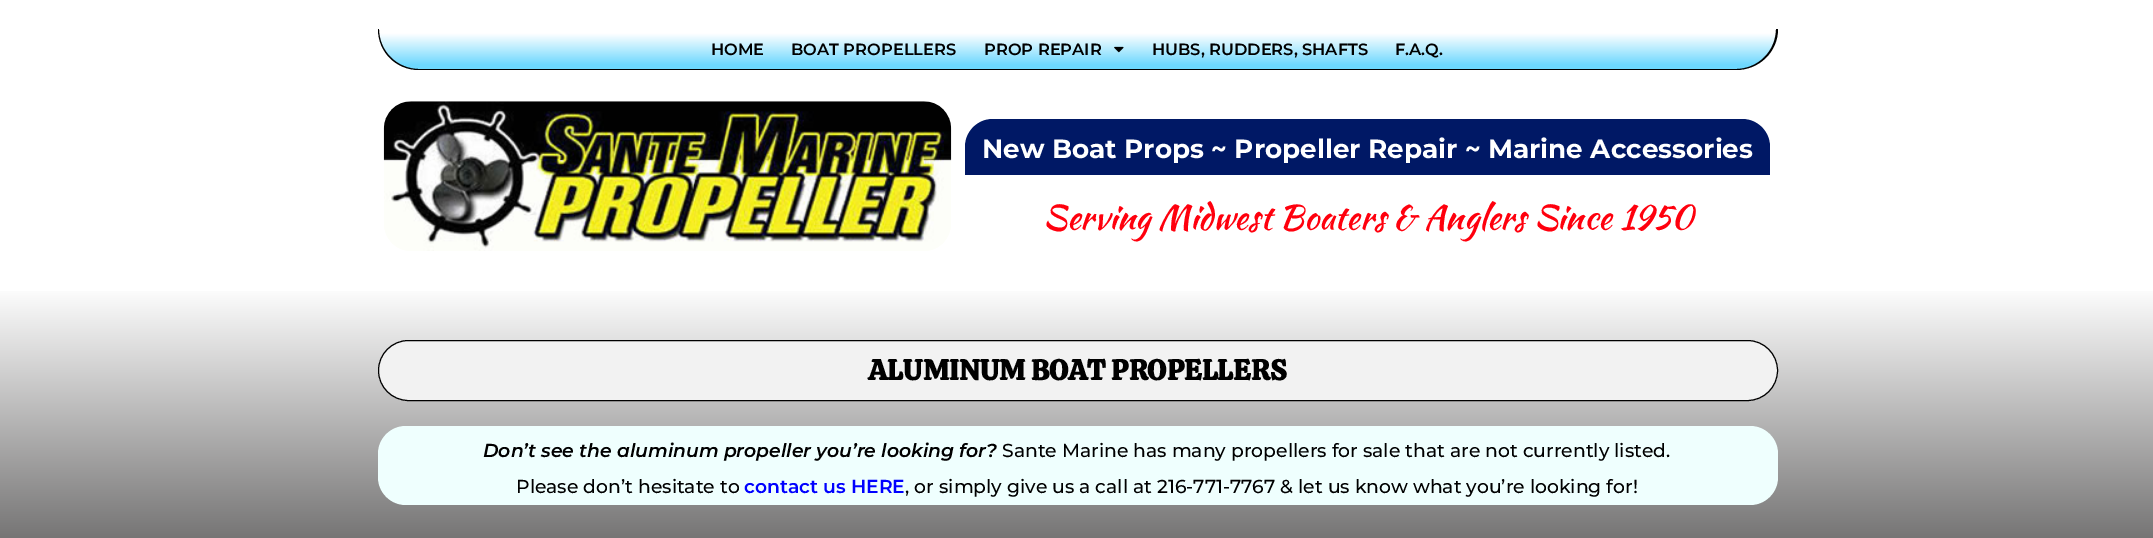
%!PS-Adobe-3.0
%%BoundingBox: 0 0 2153 538
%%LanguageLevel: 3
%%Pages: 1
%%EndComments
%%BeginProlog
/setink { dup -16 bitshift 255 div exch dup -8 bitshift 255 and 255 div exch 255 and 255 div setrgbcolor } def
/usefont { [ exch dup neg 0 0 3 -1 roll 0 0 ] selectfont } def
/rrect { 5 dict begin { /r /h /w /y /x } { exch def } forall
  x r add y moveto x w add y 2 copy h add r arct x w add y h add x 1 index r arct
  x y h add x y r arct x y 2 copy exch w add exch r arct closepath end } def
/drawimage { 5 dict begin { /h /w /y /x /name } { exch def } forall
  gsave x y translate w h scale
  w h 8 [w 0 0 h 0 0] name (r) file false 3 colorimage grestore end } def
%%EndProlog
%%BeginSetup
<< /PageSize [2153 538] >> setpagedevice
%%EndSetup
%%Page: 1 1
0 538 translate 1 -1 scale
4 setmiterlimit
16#FFFFFF setink
0 0 2153 538 rectfill
gsave 379 29 moveto 1776 29 lineto 1776 51 1758 69 1736 69 curveto 419 69 lineto 397 69 379 51 379 29 curveto closepath clip newpath
<< /ShadingType 2 /ColorSpace /DeviceRGB /Coords [1078 29 1078 69] /Extend [true true] /Function << /FunctionType 3 /Domain [0 1] /Functions [<< /FunctionType 2 /Domain [0 1] /C0 [1 1 1] /C1 [1 1 1] /N 1 >> << /FunctionType 2 /Domain [0 1] /C0 [1 1 1] /C1 [0.427 0.847 0.996] /N 1 >> << /FunctionType 2 /Domain [0 1] /C0 [0.427 0.847 0.996] /C1 [0.427 0.847 0.996] /N 1 >>] /Bounds [0.11 0.9] /Encode [0 1 0 1 0 1] >> >> shfill grestore
16#000000 setink
378 29 moveto 1778 29 lineto 1778 52 1759 70 1736 70 curveto 419 70 lineto 396 70 378 52 378 29 curveto closepath 379 29 moveto 1776 29 lineto 1776 51 1758 69 1736 69 curveto 419 69 lineto 397 69 379 51 379 29 curveto closepath eofill
/Montserrat-SemiBold 16.25 usefont
[
    [(HOME) 711 55]
    [(BOAT PROPELLERS) 791 55]
    [(PROP REPAIR) 984 55]
] { aload pop moveto show } forall
(img1.raw) 1114 46 10 7 drawimage
1152 55 moveto (HUBS, RUDDERS, SHAFTS) show
1395 55 moveto (F.A.Q.) show
(img2.raw) 383 101 569 150 drawimage
16#001865 setink
993 119 moveto 1742 119 lineto 1757.5 119 1770 131.5 1770 147 curveto 1770 175 lineto 965 175 lineto 965 147 lineto 965 131.5 977.5 119 993 119 curveto closepath fill
/Montserrat-Bold 26.25 usefont
16#FFFFFF setink
982 158 moveto (New Boat Props ~ Propeller Repair ~ Marine Accessories) show
/KaushanScript-Regular 33.75 usefont
16#FF000D setink
1043 229 moveto (Serving Midwest Boaters & Anglers Since 1950) show
gsave 0 291 moveto 2153 291 lineto 2153 538 lineto 0 538 lineto closepath clip newpath
<< /ShadingType 2 /ColorSpace /DeviceRGB /Coords [1077 286 1077 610] /Extend [true true] /Function << /FunctionType 2 /Domain [0 1] /C0 [1 1 1] /C1 [0.31 0.302 0.302] /N 1 >> >> shfill grestore
16#F2F2F2 setink
378.5 340.5 1399 60 30 rrect gsave fill grestore
16#000000 setink
stroke
/Calistoga-Bold 28.75 usefont
868 380 moveto (ALUMINUM BOAT PROPELLERS) show
16#EFFFFE setink
378 426 1400 79 28 rrect fill
/Montserrat-SemiBoldItalic 18.75 usefont
16#000000 setink
483 457 moveto (Don’t see the aluminum propeller you’re looking for?) show
/Montserrat-Medium 18.75 usefont
1002 457 moveto (Sante Marine has many propellers for sale that are not currently listed.) show
516 493 moveto (Please don’t hesitate to) show
/Montserrat-SemiBold 18.75 usefont
16#0000FF setink
744 493 moveto (contact us HERE) show
/Montserrat-Medium 18.75 usefont
16#000000 setink
905 493 moveto (, or simply give us a call at 216-771-7767 & let us know what you’re looking for!) show
showpage
%%EOF
